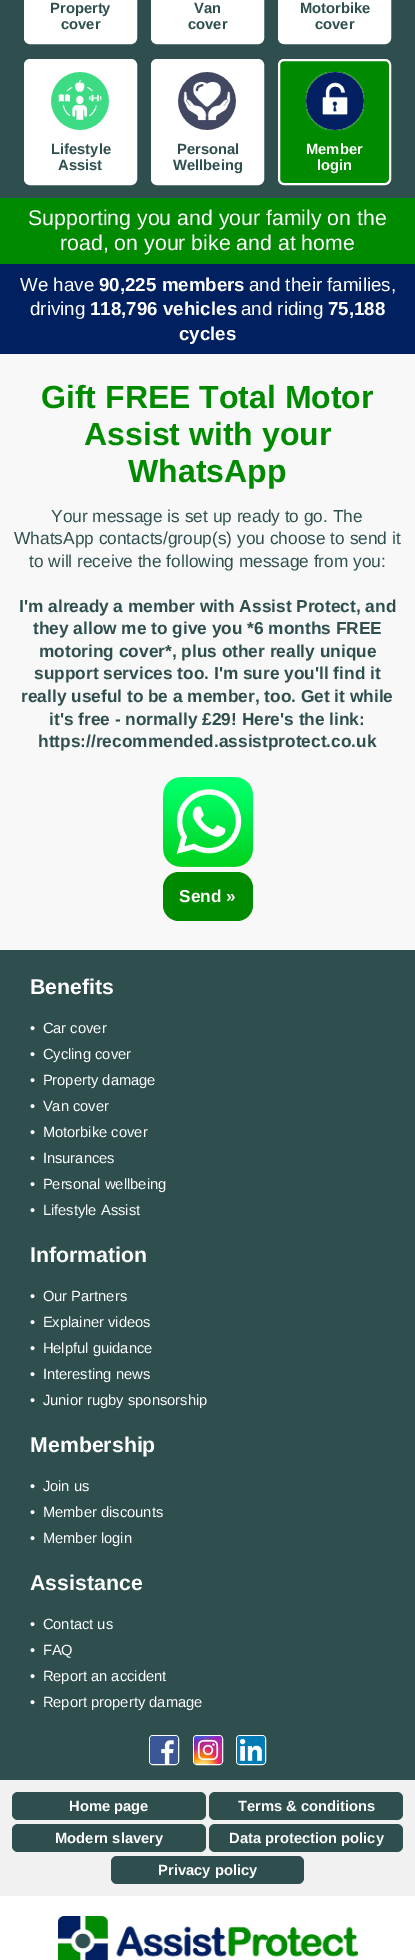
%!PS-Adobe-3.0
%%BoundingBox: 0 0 415 1960
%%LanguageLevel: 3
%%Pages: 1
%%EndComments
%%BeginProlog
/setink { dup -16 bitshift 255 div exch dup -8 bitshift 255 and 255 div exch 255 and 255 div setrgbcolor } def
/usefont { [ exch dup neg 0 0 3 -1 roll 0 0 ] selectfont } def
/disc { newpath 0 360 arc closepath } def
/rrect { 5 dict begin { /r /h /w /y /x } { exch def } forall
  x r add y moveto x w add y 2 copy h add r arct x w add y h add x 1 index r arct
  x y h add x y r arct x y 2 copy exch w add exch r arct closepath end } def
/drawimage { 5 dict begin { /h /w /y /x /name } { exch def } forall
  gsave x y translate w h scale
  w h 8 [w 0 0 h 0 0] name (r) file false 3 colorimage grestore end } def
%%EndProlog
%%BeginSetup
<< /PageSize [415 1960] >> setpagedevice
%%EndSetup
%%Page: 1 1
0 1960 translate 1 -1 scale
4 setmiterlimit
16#FFFFFF setink
0 0 415 1960 rectfill
16#2F4F4F setink
0 0 415 198 rectfill
16#FFFFFF setink
25 -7 111 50 5 rrect gsave fill grestore
2 setlinewidth
stroke
/LiberationSans-Bold 14.75 usefont
16#2F4F4F setink
50 13 moveto (Property) show
61 29 moveto (cover) show
16#FFFFFF setink
152 -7 111 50 5 rrect gsave fill grestore
stroke
16#2F4F4F setink
194 13 moveto (Van) show
188 29 moveto (cover) show
16#FFFFFF setink
279 -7 111 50 5 rrect gsave fill grestore
stroke
16#2F4F4F setink
300 13 moveto (Motorbike) show
315 29 moveto (cover) show
16#FFFFFF setink
25 60 111 124 5 rrect gsave fill grestore
stroke
(img1.raw) 51 72 58 58 drawimage
16#2F4F4F setink
51 154 moveto (Lifestyle) show
58 170 moveto (Assist) show
16#FFFFFF setink
152 60 111 124 5 rrect gsave fill grestore
stroke
(img2.raw) 178 72 58 58 drawimage
16#2F4F4F setink
177 154 moveto (Personal) show
173 170 moveto (Wellbeing) show
16#008A00 setink
279 60 111 124 5 rrect gsave fill grestore
16#FFFFFF setink
stroke
335 101 29.5 disc gsave fill grestore
16#008A00 setink
1 setlinewidth
stroke
(img3.raw) 306 72 58 58 drawimage
16#FFFFFF setink
306 154 moveto (Member) show
317 170 moveto (login) show
16#008A00 setink
0 198 415 66 rectfill
/LiberationSans-Regular 21.3 usefont
16#FFFFFF setink
28 225 moveto (Supporting you and your family on the) show
60 250 moveto (road, on your bike and at home) show
16#002060 setink
0 264 415 90 rectfill
/LiberationSans-Regular 18.75 usefont
16#FFFFFF setink
20 291 moveto (We have) show
/LiberationSans-Bold 18.75 usefont
99 291 moveto (90,225 members) show
/LiberationSans-Regular 18.75 usefont
249 291 moveto (and their families,) show
30 315 moveto (driving) show
/LiberationSans-Bold 18.75 usefont
90 315 moveto (118,796 vehicles) show
/LiberationSans-Regular 18.75 usefont
241 315 moveto (and riding) show
/LiberationSans-Bold 18.75 usefont
328 315 moveto (75,188) show
179 340 moveto (cycles) show
16#F8F8F8 setink
0 354 415 596 rectfill
/LiberationSans-Bold 32 usefont
16#008A00 setink
[
    [(Gift FREE Total Motor) 41 408]
    [(Assist with your) 84 445]
    [(WhatsApp) 128 482]
] { aload pop moveto show } forall
/LiberationSans-Regular 17.3 usefont
16#2F4F4F setink
[
    [(Your message is set up ready to go. The) 51 522]
    [(WhatsApp contacts/group\(s\) you choose to send it) 14 544]
    [(to will receive the following message from you:) 29 567]
] { aload pop moveto show } forall
/LiberationSans-Bold 17.3 usefont
[
    [(I'm already a member with Assist Protect, and) 19 612]
    [(they allow me to give you *6 months FREE) 33 634]
    [(motoring cover*, plus other really unique) 39 657]
    [(support services too. I'm sure you'll find it) 34 679]
    [(really useful to be a member, too. Get it while) 21 702]
    [(it's free - normally £29! Here's the link:) 49 725]
    [(https://recommended.assistprotect.co.uk) 38 747]
] { aload pop moveto show } forall
(img4.raw) 163 777 90 90 drawimage
16#008A00 setink
163 872 90 49 16 rrect fill
16#FFFFFF setink
179 902 moveto (Send ») show
16#2F4F4F setink
0 950 415 830 rectfill
/LiberationSans-Bold 21.3 usefont
16#FFFFFF setink
30 994 moveto (Benefits) show
/LiberationSans-Regular 14.75 usefont
[
    [(• Car cover) 30 1033]
    [(• Cycling cover) 30 1059]
    [(• Property damage) 30 1085]
    [(• Van cover) 30 1111]
    [(• Motorbike cover) 30 1137]
    [(• Insurances) 30 1163]
    [(• Personal wellbeing) 30 1189]
    [(• Lifestyle Assist) 30 1215]
] { aload pop moveto show } forall
/LiberationSans-Bold 21.3 usefont
30 1262 moveto (Information) show
/LiberationSans-Regular 14.75 usefont
[
    [(• Our Partners) 30 1301]
    [(• Explainer videos) 30 1327]
    [(• Helpful guidance) 30 1353]
    [(• Interesting news) 30 1379]
    [(• Junior rugby sponsorship) 30 1405]
] { aload pop moveto show } forall
/LiberationSans-Bold 21.3 usefont
30 1452 moveto (Membership) show
/LiberationSans-Regular 14.75 usefont
[
    [(• Join us) 30 1491]
    [(• Member discounts) 30 1517]
    [(• Member login) 30 1543]
] { aload pop moveto show } forall
/LiberationSans-Bold 21.3 usefont
30 1590 moveto (Assistance) show
/LiberationSans-Regular 14.75 usefont
[
    [(• Contact us) 30 1629]
    [(• FAQ) 30 1655]
    [(• Report an accident) 30 1681]
    [(• Report property damage) 30 1707]
] { aload pop moveto show } forall
149.5 1735.5 29 29 3.5 rrect stroke
(img5.raw) 150 1736 28 28 drawimage
193.5 1735.5 29 29 3.5 rrect stroke
(img6.raw) 194 1736 28 28 drawimage
236.5 1735.5 29 29 3.5 rrect stroke
(img7.raw) 237 1736 28 28 drawimage
16#F1F1F1 setink
0 1780 415 116 rectfill
16#2F4F4F setink
12 1792 194 28 6 rrect fill
/LiberationSans-Bold 14.75 usefont
16#FFFFFF setink
69 1811 moveto (Home page) show
16#2F4F4F setink
209 1792 194 28 6 rrect fill
16#FFFFFF setink
238 1811 moveto (Terms & conditions) show
16#2F4F4F setink
12 1824 194 28 6 rrect fill
16#FFFFFF setink
55 1843 moveto (Modern slavery) show
16#2F4F4F setink
209 1824 194 28 6 rrect fill
16#FFFFFF setink
229 1843 moveto (Data protection policy) show
16#2F4F4F setink
111 1856 193 28 6 rrect fill
16#FFFFFF setink
158 1875 moveto (Privacy policy) show
(img8.raw) 58 1916 300 44 drawimage
showpage
%%EOF
